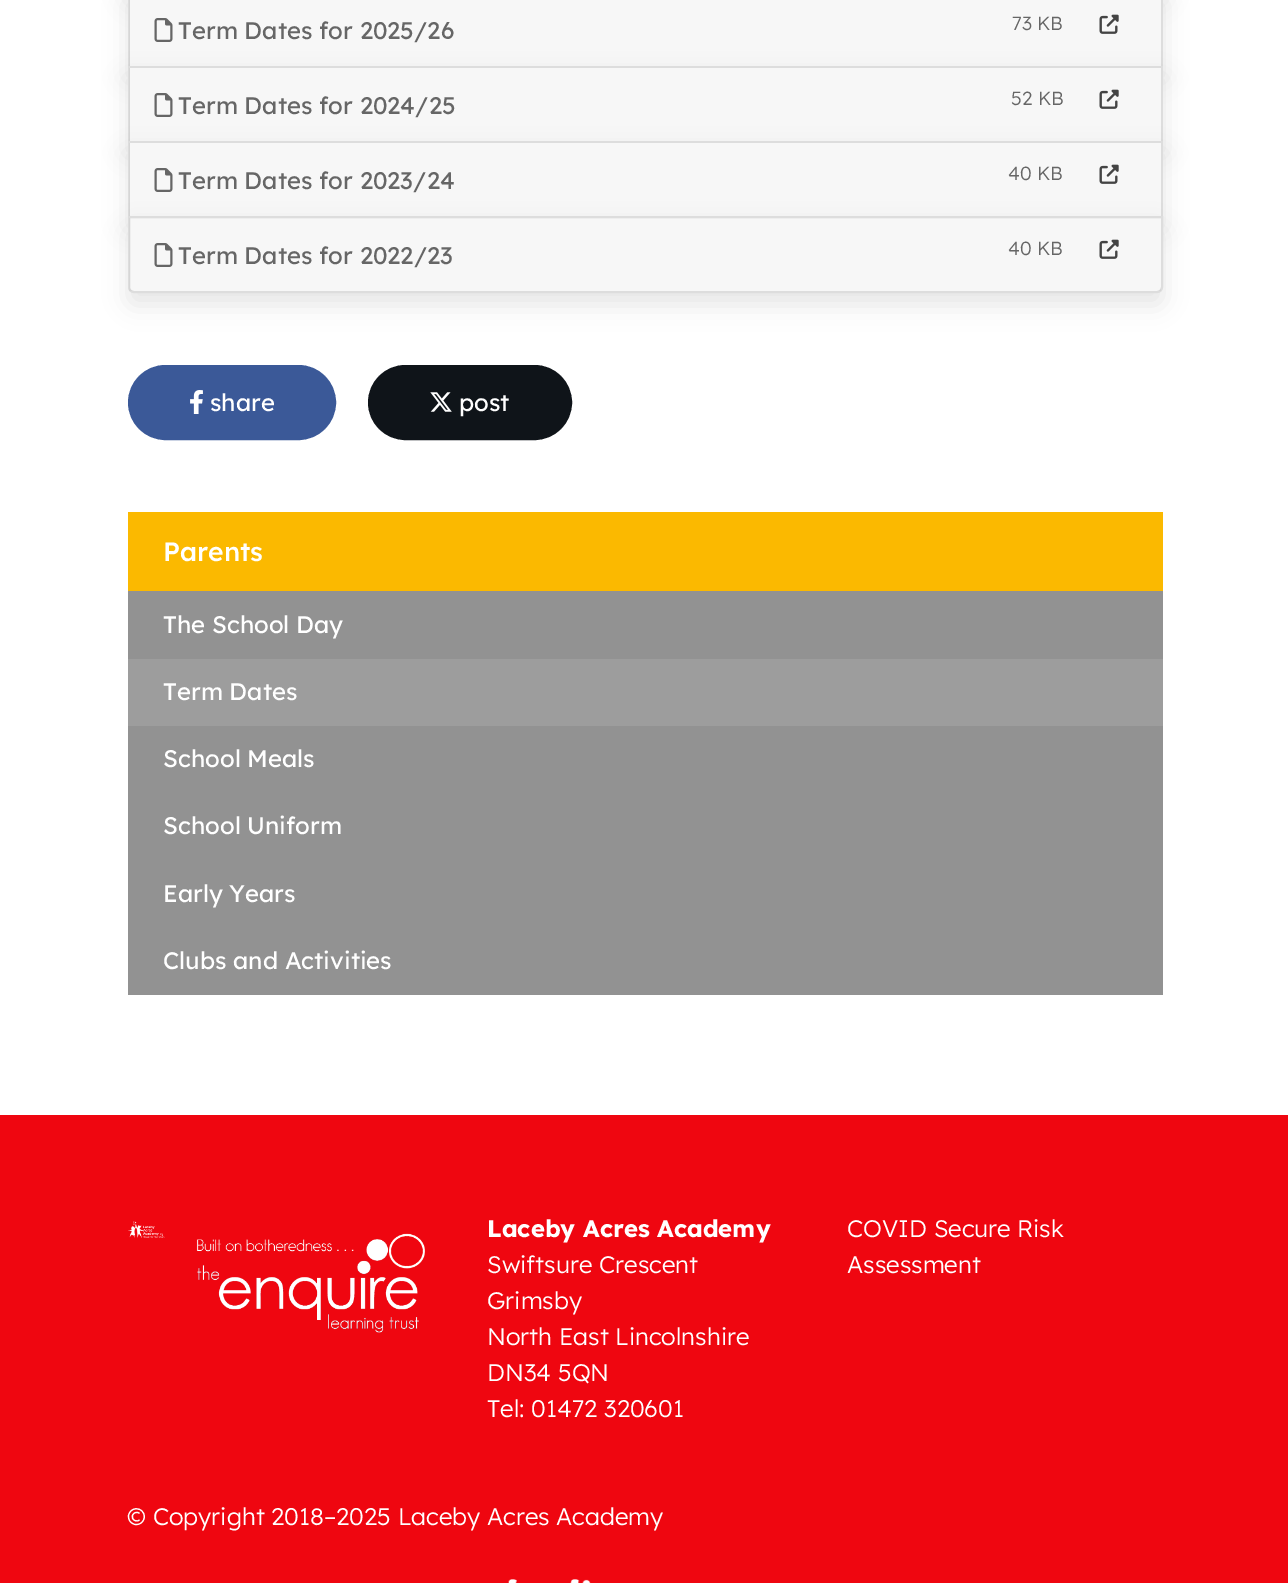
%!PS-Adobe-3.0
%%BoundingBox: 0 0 1288 1583
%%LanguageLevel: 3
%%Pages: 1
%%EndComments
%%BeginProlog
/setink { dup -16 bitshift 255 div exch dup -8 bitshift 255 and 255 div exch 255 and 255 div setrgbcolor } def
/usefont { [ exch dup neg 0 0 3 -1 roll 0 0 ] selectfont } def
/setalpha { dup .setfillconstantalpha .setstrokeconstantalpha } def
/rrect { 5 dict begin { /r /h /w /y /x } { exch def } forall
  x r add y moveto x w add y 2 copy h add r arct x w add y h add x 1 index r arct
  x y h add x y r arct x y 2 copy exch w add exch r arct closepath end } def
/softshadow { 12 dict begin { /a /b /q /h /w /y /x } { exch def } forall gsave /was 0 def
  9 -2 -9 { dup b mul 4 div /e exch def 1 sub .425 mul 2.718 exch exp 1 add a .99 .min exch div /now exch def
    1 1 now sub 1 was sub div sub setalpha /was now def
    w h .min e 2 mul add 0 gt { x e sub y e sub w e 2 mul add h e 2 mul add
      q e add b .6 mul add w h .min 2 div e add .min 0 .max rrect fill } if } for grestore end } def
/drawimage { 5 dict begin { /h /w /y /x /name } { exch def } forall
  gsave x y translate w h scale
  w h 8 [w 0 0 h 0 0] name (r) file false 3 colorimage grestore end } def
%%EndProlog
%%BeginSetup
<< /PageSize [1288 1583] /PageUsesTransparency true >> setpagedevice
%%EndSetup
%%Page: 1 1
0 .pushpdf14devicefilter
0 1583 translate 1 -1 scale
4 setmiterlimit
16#FFFFFF setink
0 0 1288 1583 rectfill
16#000000 setink
128 -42 1035 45 6 12 0.1 softshadow
128 3 1035 75 0 12 0.1 softshadow
[
    [130 0 1031 66 16#FFFFFF]
    [1161 0 2 66 16#DDDDDD]
    [128 0 2 66 16#DDDDDD]
] { aload pop setink rectfill } forall
0.03 setalpha
[
    [129 0 1032 66 16#000000]
] { aload pop setink rectfill } forall
1 setalpha
(img1.raw) 154 18 19 24 drawimage
/Lexend-Regular 24 usefont
16#666666 setink
178 39 moveto (Term Dates for 2025/26) show
/Lexend-Light 19 usefont
1012 30 moveto (73 KB) show
(img2.raw) 1099 14 20 20 drawimage
16#000000 setink
128 78 1035 75 0 12 0.1 softshadow
[
    [130 68 1031 73 16#FFFFFF]
    [128 66 1035 2 16#DDDDDD]
    [1161 66 2 75 16#DDDDDD]
    [128 66 2 75 16#DDDDDD]
] { aload pop setink rectfill } forall
0.03 setalpha
[
    [129 68 1032 73 16#000000]
] { aload pop setink rectfill } forall
1 setalpha
(img1.raw) 154 93 19 24 drawimage
/Lexend-Regular 24 usefont
16#666666 setink
178 114 moveto (Term Dates for 2024/25) show
/Lexend-Light 19 usefont
1011 105 moveto (52 KB) show
(img2.raw) 1099 89 20 20 drawimage
16#000000 setink
128 153 1035 75 0 12 0.1 softshadow
[
    [130 143 1031 73 16#FFFFFF]
    [128 141 1035 2 16#DDDDDD]
    [1161 141 2 75 16#DDDDDD]
    [128 141 2 75 16#DDDDDD]
] { aload pop setink rectfill } forall
0.03 setalpha
[
    [129 143 1032 73 16#000000]
] { aload pop setink rectfill } forall
1 setalpha
(img1.raw) 154 168 19 24 drawimage
/Lexend-Regular 24 usefont
16#666666 setink
178 189 moveto (Term Dates for 2023/24) show
/Lexend-Light 19 usefont
1008 180 moveto (40 KB) show
(img2.raw) 1099 164 20 20 drawimage
16#000000 setink
128 228 1035 77 6 12 0.1 softshadow
16#FFFFFF setink
129 217 moveto 1162 217 lineto 1162 287 lineto 1162 290 1160 292 1157 292 curveto 134 292 lineto 131 292 129 290 129 287 curveto closepath gsave fill grestore
16#DDDDDD setink
2 setlinewidth
stroke
0.03 setalpha
16#000000 setink
129 218 1032 73 rectfill
1 setalpha
(img1.raw) 154 243 19 24 drawimage
/Lexend-Regular 24 usefont
16#666666 setink
178 264 moveto (Term Dates for 2022/23) show
/Lexend-Light 19 usefont
1008 255 moveto (40 KB) show
(img3.raw) 1099 239 20 20 drawimage
16#3B5998 setink
129 366 206 73 36.5 rrect gsave fill grestore
stroke
(img4.raw) 190 390 13 24 drawimage
/Lexend-Regular 24 usefont
16#FFFFFF setink
210 411 moveto (share) show
16#0F1419 setink
369 366 202 73 36.5 rrect gsave fill grestore
stroke
(img5.raw) 430 392 22 20 drawimage
16#FFFFFF setink
459 411 moveto (post) show
16#FBB900 setink
128 512 1035 79 rectfill
/Lexend-Medium 26.5 usefont
16#FFFFFF setink
163 561 moveto (Parents) show
16#929292 setink
128 591 1035 68 rectfill
/Lexend-Regular 24 usefont
16#FFFFFF setink
163 633 moveto (The School Day) show
16#9D9D9D setink
128 659 1035 67 rectfill
16#FFFFFF setink
163 700 moveto (Term Dates) show
16#929292 setink
128 726 1035 269 rectfill
16#FFFFFF setink
[
    [(School Meals) 163 767]
    [(School Uniform) 163 834]
    [(Early Years) 163 902]
    [(Clubs and Activities) 163 969]
] { aload pop moveto show } forall
16#EF0610 setink
0 1115 1288 468 rectfill
(img6.raw) 128 1221 37 17 drawimage
(img7.raw) 196 1233 229 100 drawimage
/Lexend-Bold 24 usefont
16#FFFFFF setink
487 1237 moveto (Laceby Acres Academy) show
/Lexend-Light 24 usefont
[
    [(Swiftsure Crescent) 487 1273]
    [(Grimsby) 487 1309]
    [(North East Lincolnshire) 487 1345]
    [(DN34 5QN) 487 1381]
    [(Tel: 01472 320601) 487 1417]
    [(COVID Secure Risk) 847 1237]
    [(Assessment) 847 1273]
    [(© Copyright 2018–2025 Laceby Acres Academy) 127 1525]
] { aload pop moveto show } forall
(img8.raw) 508 1579 83 4 drawimage
.poppdf14devicefilter showpage
%%EOF
